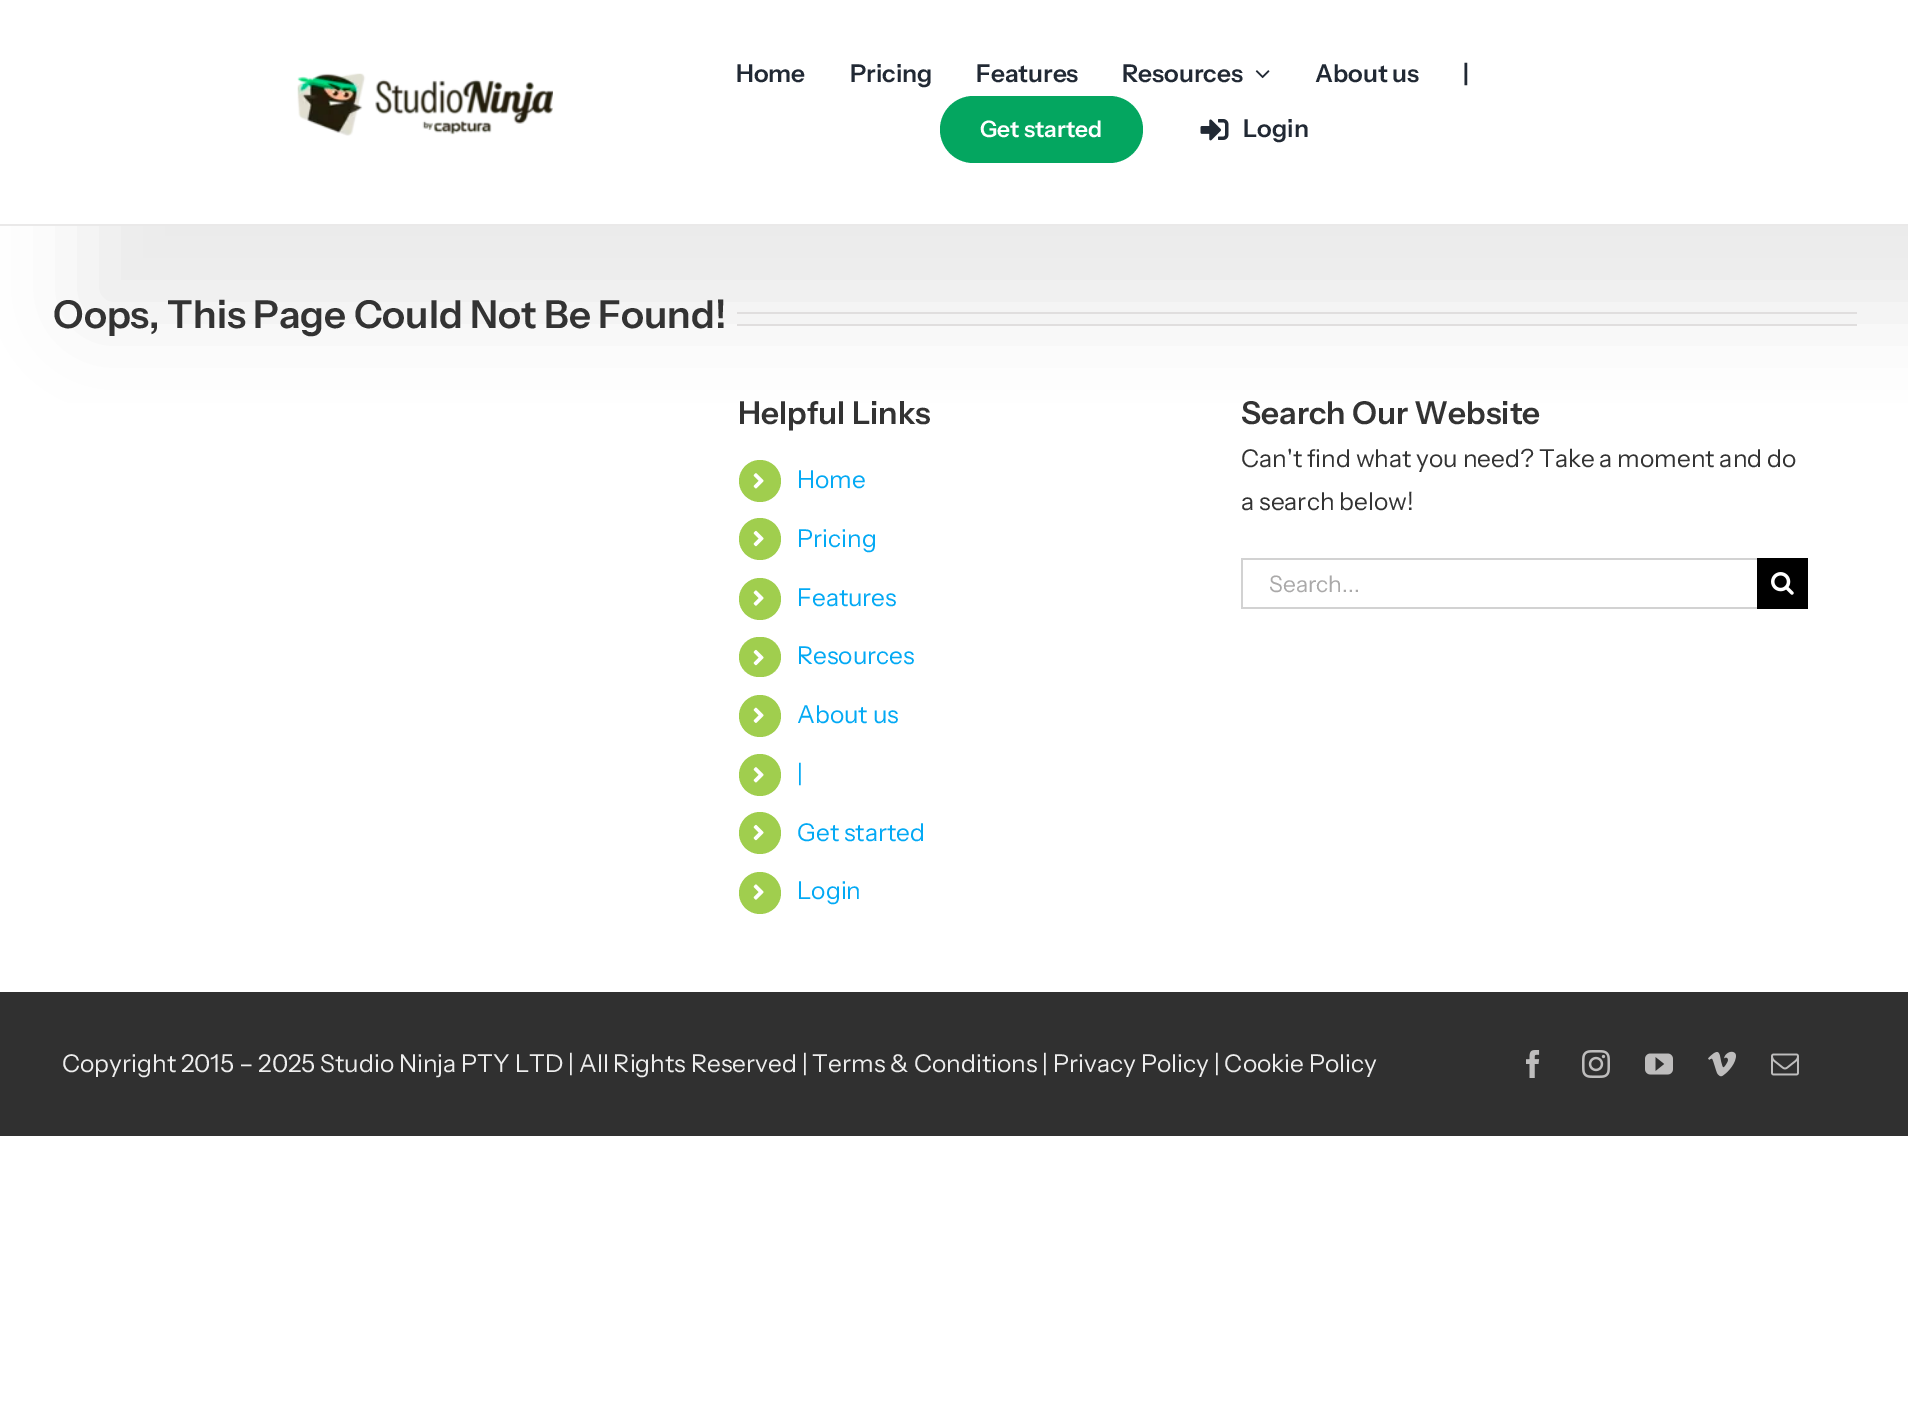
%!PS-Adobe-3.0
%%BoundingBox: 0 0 1908 1419
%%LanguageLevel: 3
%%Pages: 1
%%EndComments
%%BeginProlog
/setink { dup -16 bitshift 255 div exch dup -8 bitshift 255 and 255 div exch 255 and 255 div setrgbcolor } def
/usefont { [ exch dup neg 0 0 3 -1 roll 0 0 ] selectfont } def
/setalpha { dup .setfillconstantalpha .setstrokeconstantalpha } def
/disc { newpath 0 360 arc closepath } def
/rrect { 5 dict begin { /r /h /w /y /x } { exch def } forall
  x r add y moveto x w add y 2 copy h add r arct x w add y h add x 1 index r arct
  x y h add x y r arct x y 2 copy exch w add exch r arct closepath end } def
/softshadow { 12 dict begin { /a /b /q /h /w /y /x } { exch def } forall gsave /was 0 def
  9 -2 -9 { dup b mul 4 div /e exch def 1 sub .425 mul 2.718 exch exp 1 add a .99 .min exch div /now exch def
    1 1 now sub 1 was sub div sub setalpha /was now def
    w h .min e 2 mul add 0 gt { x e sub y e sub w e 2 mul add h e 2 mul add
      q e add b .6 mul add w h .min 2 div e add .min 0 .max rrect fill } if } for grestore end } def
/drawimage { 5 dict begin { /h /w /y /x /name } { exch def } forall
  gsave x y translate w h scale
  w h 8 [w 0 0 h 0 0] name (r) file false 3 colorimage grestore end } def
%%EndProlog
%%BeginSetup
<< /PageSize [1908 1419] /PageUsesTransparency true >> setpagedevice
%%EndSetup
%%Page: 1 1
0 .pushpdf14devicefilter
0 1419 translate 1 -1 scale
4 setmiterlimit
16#FFFFFF setink
0 0 1908 1419 rectfill
gsave
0 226 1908 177 rectclip
16#EAEAEA setink
88 88 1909 225 0 44 1 softshadow
grestore
16#EAE9E9 setink
0 224 1908 2 rectfill
(img1.raw) 297 73 256 63 drawimage
/InstrumentSans-SemiBold 24.5 usefont
16#212934 setink
[
    [(Home) 736 82]
    [(Pricing) 850 82]
    [(Features) 976 82]
    [(Resources) 1122 82]
] { aload pop moveto show } forall
(img2.raw) 1255 70 15 9 drawimage
1315 82 moveto (About us) show
1463 82 moveto (|) show
16#04A660 setink
940 96 203 67 33.5 rrect fill
/InstrumentSans-SemiBold 22.75 usefont
16#FFFFFF setink
980 137 moveto (Get started) show
(img3.raw) 1200 119 29 22 drawimage
/InstrumentSans-SemiBold 24.5 usefont
16#212934 setink
1243 137 moveto (Login) show
/InstrumentSans-SemiBold 38.5 usefont
16#333333 setink
53 328 moveto (Oops, This Page Could Not Be Found!) show
16#E0DEDE setink
737 312 1120 2 rectfill
737 324 1120 2 rectfill
/InstrumentSans-SemiBold 31.5 usefont
16#333333 setink
738 424 moveto (Helpful Links) show
16#A0CE4E setink
760 481 21 disc fill
(img4.raw) 753 473 11 16 drawimage
/InstrumentSans-Regular 24.5 usefont
16#03A9F4 setink
797 488 moveto (Home) show
16#A0CE4E setink
760 539 21 disc fill
(img5.raw) 753 530 11 17 drawimage
16#03A9F4 setink
797 547 moveto (Pricing) show
16#A0CE4E setink
760 599 21 disc fill
(img6.raw) 753 590 11 16 drawimage
16#03A9F4 setink
797 606 moveto (Features) show
16#A0CE4E setink
739 637 42 40 20 rrect fill
(img5.raw) 753 649 11 17 drawimage
16#03A9F4 setink
797 664 moveto (Resources) show
16#A0CE4E setink
760 716 21 disc fill
(img7.raw) 753 707 11 16 drawimage
16#03A9F4 setink
797 723 moveto (About us) show
16#A0CE4E setink
760 775 21 disc fill
(img4.raw) 753 767 11 16 drawimage
16#03A9F4 setink
797 782 moveto (|) show
16#A0CE4E setink
760 833 21 disc fill
(img5.raw) 753 824 11 17 drawimage
16#03A9F4 setink
797 841 moveto (Get started) show
16#A0CE4E setink
760 893 21 disc fill
(img6.raw) 753 884 11 16 drawimage
16#03A9F4 setink
797 899 moveto (Login) show
/InstrumentSans-SemiBold 31.5 usefont
16#333333 setink
1241 424 moveto (Search Our Website) show
/InstrumentSans-Regular 24.5 usefont
1241 467 moveto (Can't find what you need? Take a moment and do) show
1241 510 moveto (a search below!) show
[
    [1241 558 516 2 16#D2D2D2]
    [1241 607 516 2 16#D2D2D2]
    [1241 558 2 51 16#D2D2D2]
] { aload pop setink rectfill } forall
/InstrumentSans-Regular 22.75 usefont
16#AAA9A9 setink
1269 592 moveto (Search...) show
16#000000 setink
1757 558 51 51 rectfill
(img8.raw) 1771 572 23 23 drawimage
16#303030 setink
0 992 1908 144 rectfill
/InstrumentSans-Regular 24.5 usefont
16#EDEDED setink
62 1072 moveto (Copyright 2015 – 2025 Studio Ninja PTY LTD | All Rights Reserved | Terms & Conditions | Privacy Policy | Cookie Policy) show
(img9.raw) 1526 1050 14 28 drawimage
(img10.raw) 1582 1050 28 28 drawimage
(img11.raw) 1645 1053 28 22 drawimage
(img12.raw) 1708 1051 28 26 drawimage
(img13.raw) 1771 1053 28 23 drawimage
.poppdf14devicefilter showpage
%%EOF
